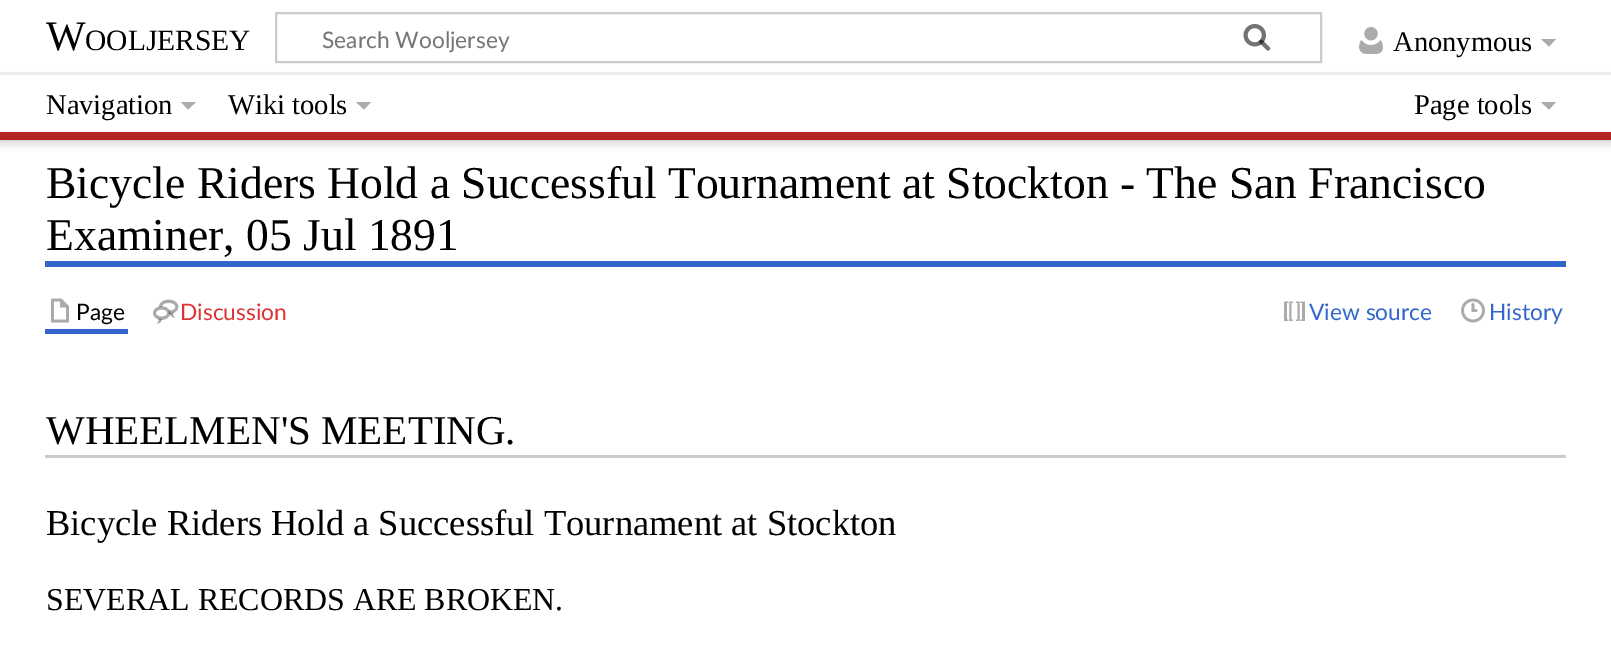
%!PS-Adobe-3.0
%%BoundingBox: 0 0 1611 660
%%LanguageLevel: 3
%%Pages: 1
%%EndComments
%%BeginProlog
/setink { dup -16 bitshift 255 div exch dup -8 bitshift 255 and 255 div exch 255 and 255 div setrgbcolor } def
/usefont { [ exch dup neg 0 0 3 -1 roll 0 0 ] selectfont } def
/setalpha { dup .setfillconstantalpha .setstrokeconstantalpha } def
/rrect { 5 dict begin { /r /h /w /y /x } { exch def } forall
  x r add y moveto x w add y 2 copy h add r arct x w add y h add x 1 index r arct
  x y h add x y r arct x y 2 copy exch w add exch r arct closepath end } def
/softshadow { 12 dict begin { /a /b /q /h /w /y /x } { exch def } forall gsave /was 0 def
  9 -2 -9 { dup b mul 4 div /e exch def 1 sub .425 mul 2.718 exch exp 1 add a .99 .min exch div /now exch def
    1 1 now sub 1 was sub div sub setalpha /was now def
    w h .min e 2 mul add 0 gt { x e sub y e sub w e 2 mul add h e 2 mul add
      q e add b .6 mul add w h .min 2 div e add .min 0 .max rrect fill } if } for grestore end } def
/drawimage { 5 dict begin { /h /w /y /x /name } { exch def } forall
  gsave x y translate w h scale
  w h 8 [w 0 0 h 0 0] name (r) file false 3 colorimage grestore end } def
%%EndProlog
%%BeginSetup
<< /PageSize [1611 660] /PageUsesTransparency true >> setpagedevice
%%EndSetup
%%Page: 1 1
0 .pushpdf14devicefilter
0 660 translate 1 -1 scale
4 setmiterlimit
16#FFFFFF setink
0 0 1611 660 rectfill
16#000000 setink
0 72 1611 68 0 1.5 0.2 softshadow
-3 74 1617 73 0 2 0.07 softshadow
16#FFFFFF setink
0 70 1611 2 rectfill
/LiberationSerif-Regular 42 usefont
16#000000 setink
46 50 moveto (W) show
/LiberationSerif-Regular 29.5 usefont
85 50 moveto (OOLJERSEY) show
16#C8CCD1 setink
2 setlinewidth
276 13 1045 49 rectstroke
(img1.raw) 1243 24 28 27 drawimage
/Lato-Regular 22.75 usefont
16#757575 setink
322 48 moveto (Search Wooljersey) show
(img2.raw) 1243 24 28 27 drawimage
(img3.raw) 1359 27 24 27 drawimage
/LiberationSerif-Regular 28.5 usefont
16#000000 setink
1393 51 moveto (Anonymous) show
16#ABABAB setink
1556 39 moveto 1549 46.5 lineto 1541 39 lineto closepath fill
[
    [0 75 1611 57 16#FFFFFF]
    [0 72 1611 3 16#EAECF0]
    [0 132 1611 8 16#B32424]
] { aload pop setink rectfill } forall
16#000000 setink
46 114 moveto (Navigation) show
16#ABABAB setink
196 102 moveto 188 109.5 lineto 181 102 lineto closepath fill
16#000000 setink
228 114 moveto (Wiki tools) show
16#ABABAB setink
371 102 moveto 364 109.5 lineto 356 102 lineto closepath fill
16#000000 setink
1414 114 moveto (Page tools) show
16#ABABAB setink
1556 102 moveto 1549 109.5 lineto 1541 102 lineto closepath fill
16#3366CC setink
45 261 1521 6 rectfill
/LiberationSerif-Regular 45.6 usefont
16#000000 setink
46 198 moveto (Bicycle Riders Hold a Successful Tournament at Stockton - The San Francisco) show
46 250 moveto (Examiner, 05 Jul 1891) show
16#3366CC setink
45 329 83 5 rectfill
(img4.raw) 51 298 18 25 drawimage
/Lato-Regular 22.75 usefont
16#000000 setink
76 320 moveto (Page) show
(img5.raw) 153 299 26 25 drawimage
16#DD3333 setink
180 320 moveto (Discussion) show
(img6.raw) 1284 301 21 20 drawimage
16#3366CC setink
1309 320 moveto (View source) show
(img7.raw) 1461 298 24 25 drawimage
1489 320 moveto (History) show
/LiberationSerif-Regular 41 usefont
16#000000 setink
46 444 moveto (WHEELMEN'S MEETING.) show
16#C8CCD1 setink
45 455 1521 3 rectfill
/LiberationSerif-Regular 36.5 usefont
16#000000 setink
46 535 moveto (Bicycle Riders Hold a Successful Tournament at Stockton) show
/LiberationSerif-Regular 31.9 usefont
46 610 moveto (SEVERAL RECORDS ARE BROKEN.) show
.poppdf14devicefilter showpage
%%EOF
